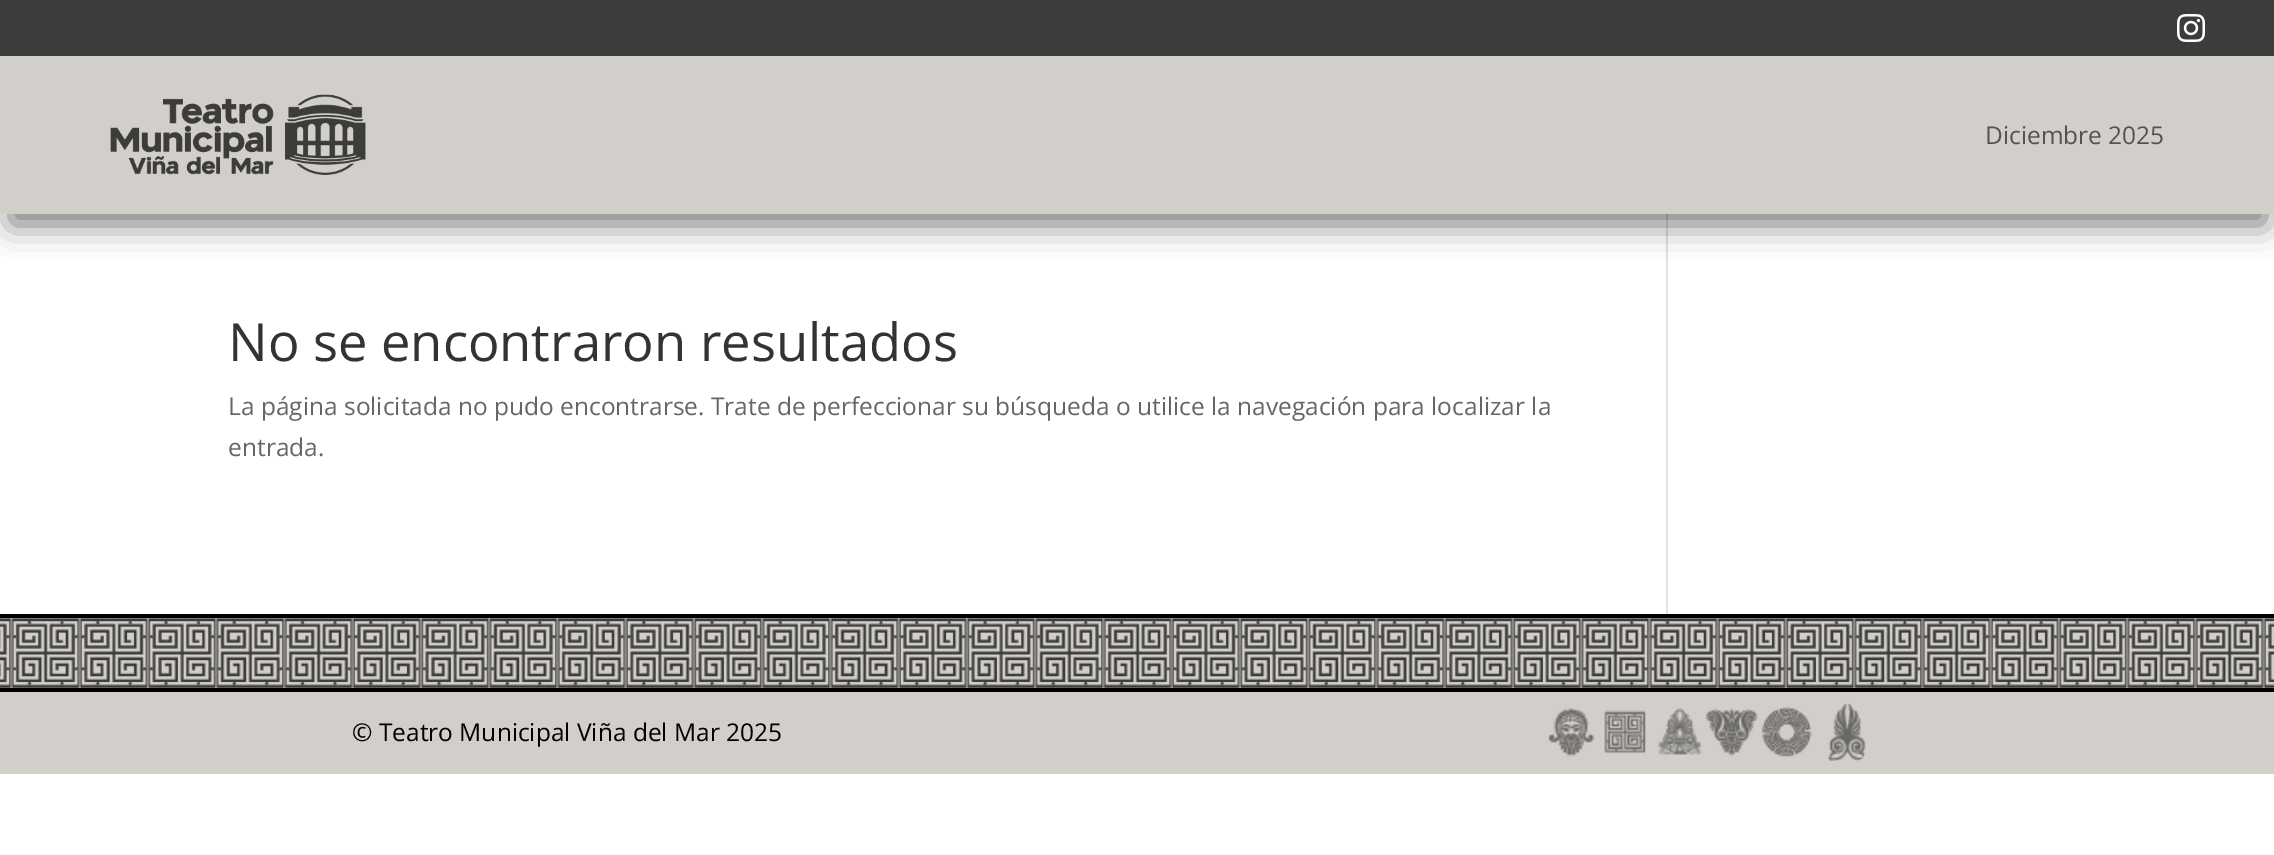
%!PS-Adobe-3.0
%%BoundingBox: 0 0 2274 855
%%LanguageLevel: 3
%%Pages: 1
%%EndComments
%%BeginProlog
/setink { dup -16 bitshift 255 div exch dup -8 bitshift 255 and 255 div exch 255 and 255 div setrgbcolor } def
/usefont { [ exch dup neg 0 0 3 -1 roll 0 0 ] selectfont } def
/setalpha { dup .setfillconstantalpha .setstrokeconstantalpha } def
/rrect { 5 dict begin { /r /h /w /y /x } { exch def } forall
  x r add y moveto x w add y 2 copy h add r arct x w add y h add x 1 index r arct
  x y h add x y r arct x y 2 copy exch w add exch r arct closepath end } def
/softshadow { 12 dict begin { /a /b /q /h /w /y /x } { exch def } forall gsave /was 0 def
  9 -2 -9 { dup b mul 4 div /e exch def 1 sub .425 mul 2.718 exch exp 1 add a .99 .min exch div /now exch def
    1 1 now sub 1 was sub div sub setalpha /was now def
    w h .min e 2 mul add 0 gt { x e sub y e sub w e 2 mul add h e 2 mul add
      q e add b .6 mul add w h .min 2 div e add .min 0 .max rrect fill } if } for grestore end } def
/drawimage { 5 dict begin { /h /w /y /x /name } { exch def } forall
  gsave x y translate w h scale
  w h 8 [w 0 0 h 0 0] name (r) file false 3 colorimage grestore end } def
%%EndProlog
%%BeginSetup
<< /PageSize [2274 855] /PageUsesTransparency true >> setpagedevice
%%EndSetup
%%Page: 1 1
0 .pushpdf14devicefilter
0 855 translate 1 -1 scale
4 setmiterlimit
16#FFFFFF setink
0 0 2274 855 rectfill
16#E2E2E2 setink
1666 214 2 400 rectfill
16#000000 setink
11 32 2254 192 0 16 0.3 softshadow
16#3C3C3B setink
0 0 2274 56 rectfill
16#000000 setink
11 88 2254 136 0 16 0.3 softshadow
(img1.raw) 2177 14 28 28 drawimage
16#D2CFCB setink
0 56 2274 158 rectfill
(img2.raw) 110 94 256 81 drawimage
/OpenSans-Regular 24.5 usefont
16#545351 setink
1985 144 moveto (Diciembre 2025) show
/OpenSans-Regular 52.5 usefont
16#333333 setink
228 361 moveto (No se encontraron resultados) show
/OpenSans-Regular 24.5 usefont
16#666666 setink
228 415 moveto (La página solicitada no pudo encontrarse. Trate de perfeccionar su búsqueda o utilice la navegación para localizar la) show
228 456 moveto (entrada.) show
16#D2CFCB setink
0 618 2274 70 rectfill
(img3.raw) 0 618 2274 70 drawimage
[
    [0 614 2274 4 16#000000]
    [0 688 2274 4 16#000000]
    [0 692 2274 82 16#D2CFCB]
] { aload pop setink rectfill } forall
16#000000 setink
352 741 moveto (© Teatro Municipal Viña del Mar 2025) show
(img4.raw) 1548 703 318 58 drawimage
.poppdf14devicefilter showpage
%%EOF
